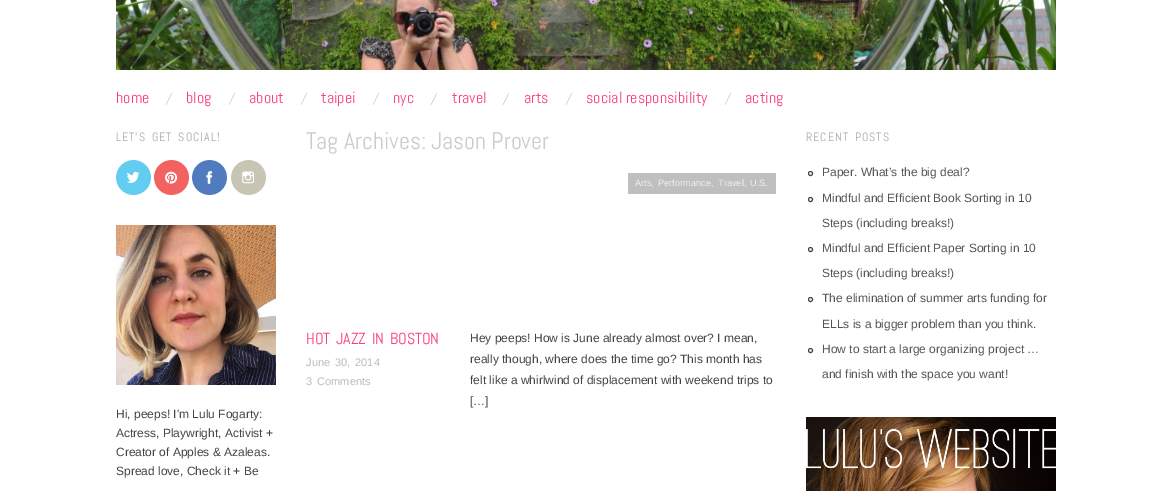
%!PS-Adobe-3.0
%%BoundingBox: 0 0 1171 491
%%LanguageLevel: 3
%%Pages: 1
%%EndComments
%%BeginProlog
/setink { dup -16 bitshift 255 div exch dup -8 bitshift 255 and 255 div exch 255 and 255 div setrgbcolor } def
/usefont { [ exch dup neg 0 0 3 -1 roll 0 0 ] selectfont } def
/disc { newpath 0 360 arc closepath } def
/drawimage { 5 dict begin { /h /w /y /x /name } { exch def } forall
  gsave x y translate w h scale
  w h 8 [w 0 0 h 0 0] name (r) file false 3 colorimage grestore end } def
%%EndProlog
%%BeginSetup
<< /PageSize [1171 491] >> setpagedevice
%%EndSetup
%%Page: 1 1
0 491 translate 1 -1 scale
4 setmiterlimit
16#FFFFFF setink
0 0 1171 491 rectfill
(img1.raw) 116 0 940 70 drawimage
/Abel-Regular 16 usefont
16#FA3D7E setink
116 103 moveto (home) show
(img2.raw) 165 92 8 13 drawimage
186 103 moveto (blog) show
(img2.raw) 228 92 8 13 drawimage
249 103 moveto (about) show
(img2.raw) 300 92 8 13 drawimage
321 103 moveto (taipei) show
(img2.raw) 372 92 8 13 drawimage
393 103 moveto (nyc) show
(img2.raw) 430 92 8 13 drawimage
452 103 moveto (travel) show
(img2.raw) 502 92 8 13 drawimage
524 103 moveto (arts) show
(img2.raw) 565 92 8 13 drawimage
586 103 moveto (social responsibility) show
(img2.raw) 724 92 8 13 drawimage
745 103 moveto (acting) show
/Abel-Regular 12 usefont
16#AAAAAA setink
116 141 moveto 2 0 32 1 0 (LET’S GET SOCIAL!) awidthshow
(img3.raw) 116 160 35 35 drawimage
(img4.raw) 154 160 35 35 drawimage
(img5.raw) 192 160 35 35 drawimage
(img6.raw) 231 160 35 35 drawimage
(img7.raw) 116 225 160 160 drawimage
/LiberationSans-Regular 12 usefont
16#444444 setink
[
    [(Hi, peeps! I'm Lulu Fogarty:) 116 418]
    [(Actress, Playwright, Activist +) 116 437]
    [(Creator of Apples & Azaleas.) 116 456]
    [(Spread love, Check it + Be) 116 475]
] { aload pop moveto show } forall
/Abel-Regular 24 usefont
16#CCCCCC setink
306 149 moveto (Tag Archives: Jason Prover) show
16#BFBFBF setink
628 173 148 21 rectfill
/LiberationSans-Regular 9.25 usefont
16#EFEFEF setink
[
    [(Arts,) 635 186]
    [(Performance,) 658 186]
    [(Travel,) 718 186]
    [(U.S.) 750 186]
] { aload pop moveto show } forall
/Abel-Regular 16 usefont
16#FA3D7E setink
306 344 moveto 2 0 32 (HOT JAZZ IN BOSTON) widthshow
/LiberationSans-Regular 11 usefont
16#BBBBBB setink
306 366 moveto 2 0 32 (June 30, 2014) widthshow
306 385 moveto 2 0 32 (3 Comments) widthshow
/LiberationSans-Regular 12 usefont
16#444444 setink
[
    [(Hey peeps! How is June already almost over? I mean,) 470 342]
    [(really though, where does the time go? This month has) 470 363]
    [(felt like a whirlwind of displacement with weekend trips to) 470 384]
    [([…]) 470 405]
] { aload pop moveto show } forall
/Abel-Regular 12 usefont
16#AAAAAA setink
806 141 moveto 2 0 32 1 0 (RECENT POSTS) awidthshow
16#444444 setink
810.5 173.5 2 disc stroke
/LiberationSans-Regular 12 usefont
16#555555 setink
822 176 moveto (Paper. What’s the big deal?) show
16#444444 setink
810.5 199.5 2 disc stroke
16#555555 setink
822 202 moveto (Mindful and Efficient Book Sorting in 10) show
822 227 moveto (Steps \(including breaks!\)) show
16#444444 setink
810.5 249.5 2 disc stroke
16#555555 setink
822 252 moveto (Mindful and Efficient Paper Sorting in 10) show
822 277 moveto (Steps \(including breaks!\)) show
16#444444 setink
810.5 299.5 2 disc stroke
16#555555 setink
822 302 moveto (The elimination of summer arts funding for) show
822 328 moveto (ELLs is a bigger problem than you think.) show
16#444444 setink
810.5 350.5 2 disc stroke
16#555555 setink
822 353 moveto (How to start a large organizing project …) show
822 378 moveto (and finish with the space you want!) show
(img8.raw) 806 417 250 74 drawimage
showpage
%%EOF
